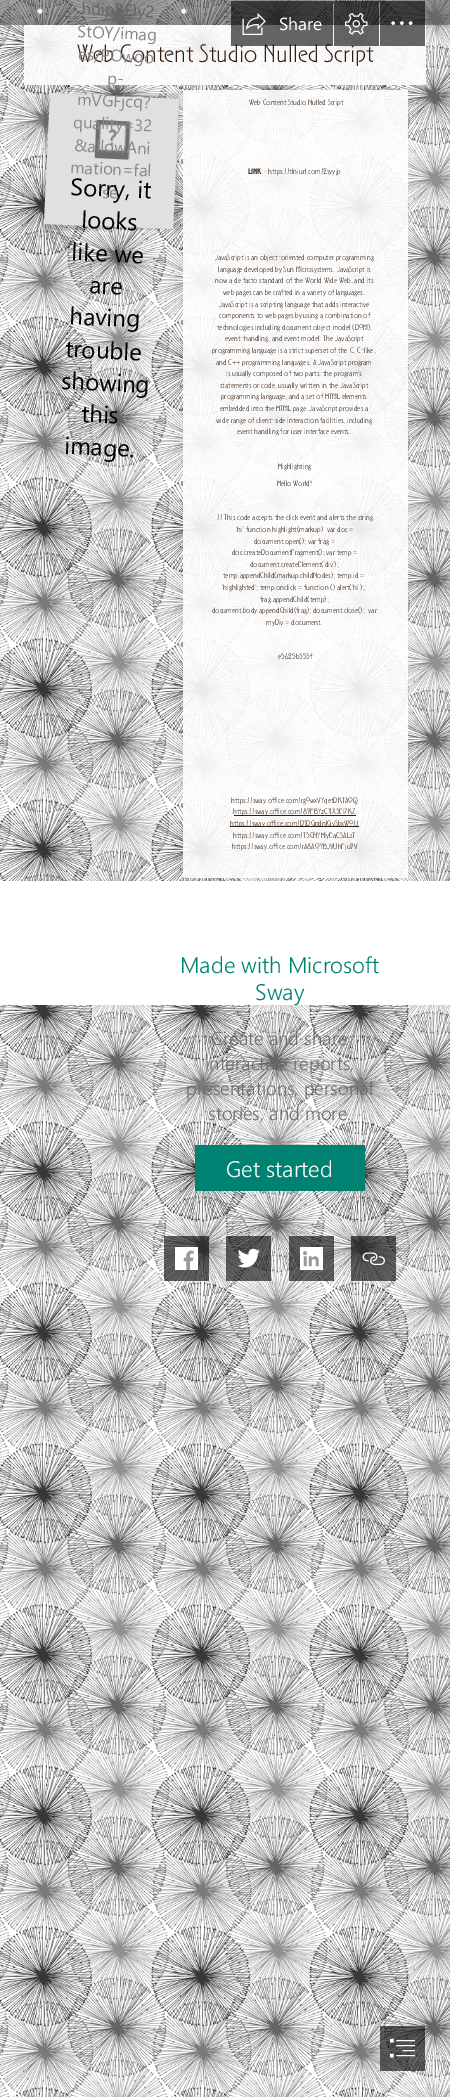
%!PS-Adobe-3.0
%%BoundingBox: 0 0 450 2097
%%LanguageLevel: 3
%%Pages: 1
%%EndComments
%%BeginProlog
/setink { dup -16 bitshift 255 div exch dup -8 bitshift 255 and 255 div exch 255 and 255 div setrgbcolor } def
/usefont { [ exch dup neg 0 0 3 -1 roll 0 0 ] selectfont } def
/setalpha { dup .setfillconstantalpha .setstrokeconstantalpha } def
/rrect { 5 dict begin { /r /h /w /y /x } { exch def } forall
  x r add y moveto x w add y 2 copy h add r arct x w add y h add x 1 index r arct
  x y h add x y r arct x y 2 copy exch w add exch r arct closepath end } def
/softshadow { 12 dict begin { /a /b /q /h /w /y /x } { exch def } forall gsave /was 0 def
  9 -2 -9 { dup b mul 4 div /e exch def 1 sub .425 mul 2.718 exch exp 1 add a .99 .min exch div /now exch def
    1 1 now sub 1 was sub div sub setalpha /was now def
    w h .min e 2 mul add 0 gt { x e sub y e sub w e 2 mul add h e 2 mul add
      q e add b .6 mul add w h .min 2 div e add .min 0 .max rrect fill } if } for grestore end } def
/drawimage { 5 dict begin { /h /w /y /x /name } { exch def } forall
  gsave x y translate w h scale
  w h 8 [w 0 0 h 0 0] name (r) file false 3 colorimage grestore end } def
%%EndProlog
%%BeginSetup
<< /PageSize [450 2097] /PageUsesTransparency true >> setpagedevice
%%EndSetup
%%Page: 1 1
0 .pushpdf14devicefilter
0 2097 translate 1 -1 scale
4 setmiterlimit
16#FFFFFF setink
0 0 450 2097 rectfill
(img2.raw) 0 0 450 2097 drawimage
/SegoeUI-Regular 16.75 usefont
16#888888 setink
gsave 81 14 translate 2.5 rotate 0 0 moveto (hdipBEIy2) show grestore
0.5 setalpha
16#404040 setink
0 0 450 25 rectfill
1 setalpha
(img1.raw) 37 8 150 6 drawimage
16#000000 setink
44 94 135 136 0 1 0.15 softshadow
16#E0E0E0 setink
50 93 moveto 179 99 lineto 173 229 lineto 44 224 lineto closepath fill
0.9 setalpha
16#FFFFFF setink
24 25 402 60 rectfill
1 setalpha
16#888888 setink
gsave 77 37 translate 2.5 rotate 0 0 moveto (StOY/imag) show grestore
/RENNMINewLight-Light 26.4 usefont
16#361F0F setink
77 62 moveto (Web Content Studio Nulled Script) show
/SegoeUI-Regular 16.75 usefont
16#888888 setink
gsave 78 60 translate 2.5 rotate 0 0 moveto (es/POwgo) show grestore
gsave 107 84 translate 2.5 rotate 0 0 moveto (p-) show grestore
gsave 77 105 translate 2.5 rotate 0 0 moveto (mVGFjcq?) show grestore
(img3.raw) 94 119 37 41 drawimage
gsave 73 128 translate 2.5 rotate 0 0 moveto (quality=32) show grestore
gsave 74 151 translate 2.5 rotate 0 0 moveto (&allowAni) show grestore
gsave 70 173 translate 2.5 rotate 0 0 moveto (mation=fal) show grestore
/SegoeUI-Regular 24 usefont
16#000000 setink
gsave 70 195 translate 2.5 rotate 0 0 moveto (Sorry, it) show grestore
/SegoeUI-Regular 16.75 usefont
16#888888 setink
gsave 102 198 translate 2.5 rotate 0 0 moveto (se) show grestore
/SegoeUI-Regular 24 usefont
16#000000 setink
gsave 81 228 translate 2.5 rotate 0 0 moveto (looks) show grestore
gsave 71 260 translate 2.5 rotate 0 0 moveto (like we) show grestore
gsave 89 293 translate 2.5 rotate 0 0 moveto (are) show grestore
gsave 69 324 translate 2.5 rotate 0 0 moveto (having) show grestore
gsave 65 357 translate 2.5 rotate 0 0 moveto (trouble) show grestore
gsave 61 389 translate 2.5 rotate 0 0 moveto (showing) show grestore
gsave 81 422 translate 2.5 rotate 0 0 moveto (this) show grestore
gsave 64 454 translate 2.5 rotate 0 0 moveto (image.) show grestore
0.9 setalpha
16#FFFFFF setink
183 90 225 788 rectfill
/RENNMINewLight-Light 8.4 usefont
1 setalpha
16#361F0F setink
249 105 moveto (Web Content Studio Nulled Script) show
/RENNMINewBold-Bold 8.4 usefont
248 174 moveto (LINK) show
/RENNMINewLight-Light 8.4 usefont
[
    [(• https://tlniurl.com/2syyjp) 264 174]
    [(JavaScript is an object-oriented computer programming) 215 260]
    [(language developed by Sun Microsystems. JavaScript is) 218 272]
    [(now a de facto standard of the World Wide Web, and its) 215 283]
    [(web pages can be crafted in a variety of languages.) 223 295]
    [(JavaScript is a scripting language that adds interactive) 219 307]
    [(components to web pages by using a combination of) 219 318]
    [(technologies including document object model \(DOM\),) 217 330]
    [(event-handling, and event model. The JavaScript) 225 341]
    [(programming language is a strict superset of the C, C-like,) 212 353]
    [(and C++ programming languages. A JavaScript program) 216 365]
    [(is usually composed of two parts: the program's) 226 376]
    [(statements or code, usually written in the JavaScript) 220 388]
    [(programming language, and a set of HTML elements) 221 399]
    [(embedded into the HTML page. JavaScript provides a) 220 411]
    [(wide range of client-side interaction facilities, including) 216 423]
    [(event handling for user interface events.) 237 434]
    [(Highlighting) 278 469]
    [(Hello World!) 277 486]
    [(// This code accepts the click event and alerts the string) 217 520]
    [('hi' function highlight\(markup\)  var doc =) 236 532]
    [(document.open\(\); var frag =) 254 544]
    [(doc.createDocumentFragment\(\); var temp =) 232 555]
    [(document.createElement\('div'\);) 250 567]
    [(temp.appendChild\(markup.childNodes\); temp.id =) 223 578]
    [('highlighted'; temp.onclick = function \(\) alert\('hi'\);;) 222 590]
    [(frag.appendChild\(temp\);) 260 602]
    [(document.body.appendChild\(frag\); document.close\(\);  var) 212 613]
    [(myDiv = document.) 266 625]
    [(e5625b353f) 278 659]
    [(https://sway.office.com/rgOwxVYqetDKTA0Q) 231 803]
] { aload pop moveto show } forall
234 815 122 1 0.5 rrect fill
233 814 moveto (https://sway.office.com/89FBYzC1lX3Ei7KZ) show
230 826 129 1 0.5 rrect fill
[
    [(https://sway.office.com/D1DGndnIGvSbxWOU) 230 826]
    [(https://sway.office.com/T3CNYHiyEaCSALsT) 233 838]
    [(https://sway.office.com/rA8A0YBJVUhFju9V) 232 849]
] { aload pop moveto show } forall
16#FFFFFF setink
0 881 450 124 rectfill
/SegoeUI-Light 22.5 usefont
16#008272 setink
180 973 moveto (Made with Microsoft) show
255 1000 moveto (Sway) show
/SegoeUI-Light 18.75 usefont
16#6E6E6E setink
[
    [(Create and share) 211 1045]
    [(interactive reports,) 205 1070]
    [(presentations, personal) 186 1095]
    [(stories, and more.) 208 1120]
] { aload pop moveto show } forall
16#008272 setink
195 1145 170 46 rectfill
/SegoeUI-Light 22.5 usefont
16#FFFFFF setink
226 1177 moveto (Get started) show
0.6 setalpha
16#000000 setink
164 1236 45 45 rectfill
1 setalpha
16#FFFFFF setink
175 1247 23 23 rectfill
(img4.raw) 183 1250 11 20 drawimage
0.6 setalpha
16#000000 setink
226 1236 45 45 rectfill
1 setalpha
(img5.raw) 237 1248 23 20 drawimage
0.6 setalpha
289 1236 45 45 rectfill
1 setalpha
16#FFFFFF setink
300 1247 23 23 rectfill
(img6.raw) 303 1251 16 16 drawimage
0.6 setalpha
16#000000 setink
351 1236 45 45 rectfill
1 setalpha
(img7.raw) 362 1252 23 13 drawimage
0.6 setalpha
380 2026 45 45 rectfill
1 setalpha
(img8.raw) 390 2038 25 20 drawimage
0.6 setalpha
231 1 102 45 rectfill
1 setalpha
(img9.raw) 242 13 24 22 drawimage
/SegoeUI-Regular 17.5 usefont
16#FFFFFF setink
279 30 moveto (Share) show
0.6 setalpha
16#000000 setink
334 1 45 45 rectfill
1 setalpha
(img10.raw) 345 12 23 23 drawimage
0.6 setalpha
380 1 45 45 rectfill
1 setalpha
(img11.raw) 391 21 22 4 drawimage
.poppdf14devicefilter showpage
%%EOF
